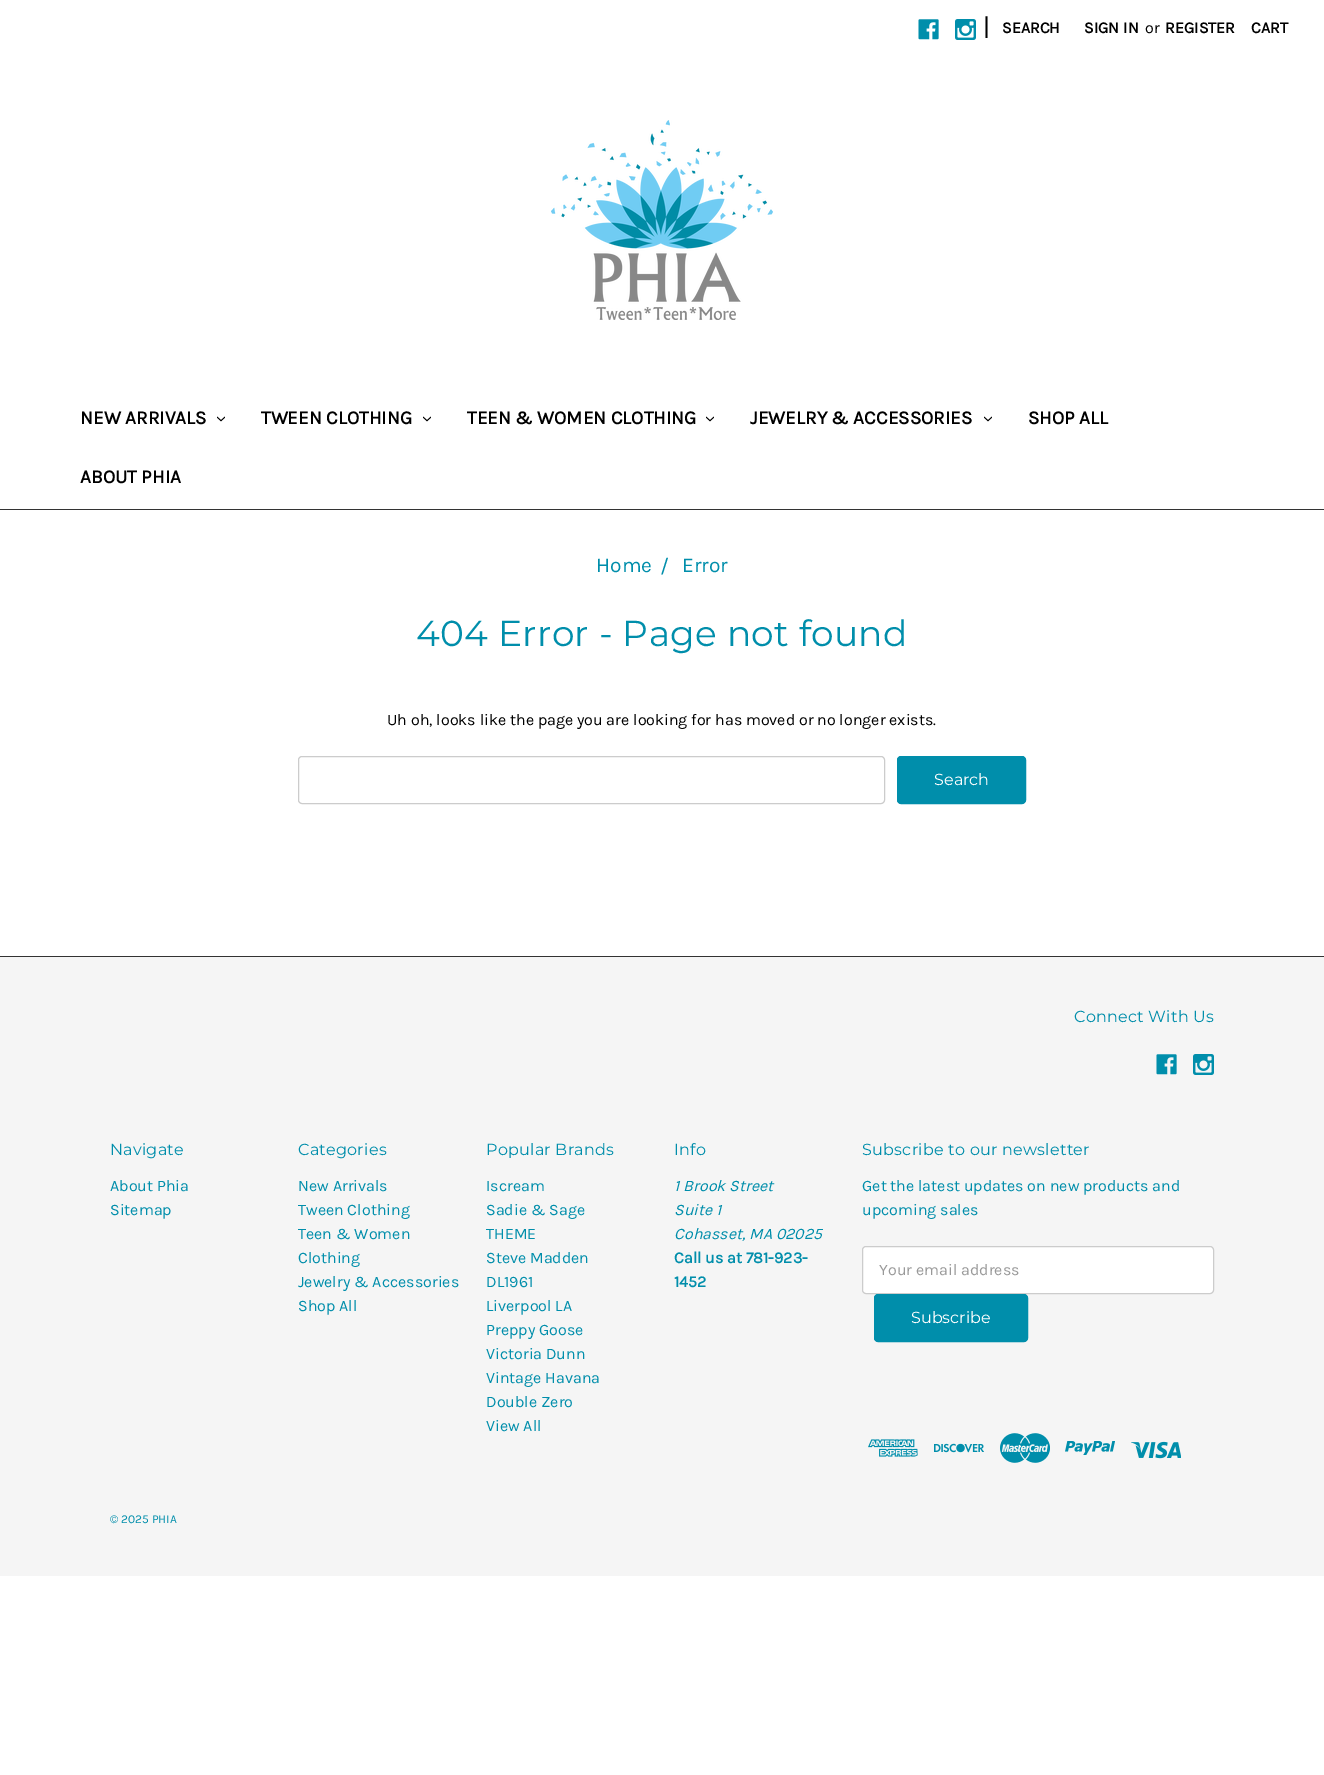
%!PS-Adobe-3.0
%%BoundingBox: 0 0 1324 1775
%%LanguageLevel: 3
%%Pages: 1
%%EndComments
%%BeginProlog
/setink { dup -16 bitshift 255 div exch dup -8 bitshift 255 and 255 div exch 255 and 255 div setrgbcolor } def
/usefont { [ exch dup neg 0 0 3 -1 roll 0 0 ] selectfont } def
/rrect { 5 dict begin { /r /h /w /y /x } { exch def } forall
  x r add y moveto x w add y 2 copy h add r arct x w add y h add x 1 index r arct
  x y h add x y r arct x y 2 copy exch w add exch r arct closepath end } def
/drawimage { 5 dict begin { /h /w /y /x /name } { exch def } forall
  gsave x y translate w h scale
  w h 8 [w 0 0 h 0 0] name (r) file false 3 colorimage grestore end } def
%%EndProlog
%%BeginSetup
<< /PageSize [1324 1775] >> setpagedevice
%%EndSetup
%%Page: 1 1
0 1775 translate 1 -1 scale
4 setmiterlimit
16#FFFFFF setink
0 0 1324 1775 rectfill
16#333333 setink
0 509 1324 1 rectfill
(img1.raw) 918 19 21 21 drawimage
(img2.raw) 955 19 21 21 drawimage
/Karla-Regular 25 usefont
16#000000 setink
983 35 moveto (|) show
/Karla-Bold 16 usefont
1002 33 moveto (SEARCH) show
1084 33 moveto (SIGN IN) show
/Karla-Regular 16 usefont
1145 33 moveto (or) show
/Karla-Bold 16 usefont
1165 33 moveto (REGISTER) show
1251 33 moveto (CART) show
(img3.raw) 551 120 222 200 drawimage
/Karla-Bold 19 usefont
80 424 moveto (NEW ARRIVALS) show
(img4.raw) 217 416 8 6 drawimage
261 424 moveto (TWEEN CLOTHING) show
(img4.raw) 423 416 8 6 drawimage
467 424 moveto (TEEN & WOMEN CLOTHING) show
(img4.raw) 706 416 8 6 drawimage
750 424 moveto (JEWELRY & ACCESSORIES) show
(img4.raw) 984 416 8 6 drawimage
1028 424 moveto (SHOP ALL) show
80 483 moveto (ABOUT PHIA) show
/Karla-Regular 21 usefont
16#008EAB setink
[
    [(Home) 596 572]
    [(/) 660 573]
    [(Error) 682 572]
] { aload pop moveto show } forall
/Montserrat-Thin 36 usefont
416 646 moveto 0.25 0 (404 Error - Page not found) ashow
/Karla-Regular 16 usefont
16#000000 setink
387 725 moveto (Uh oh, looks like the page you are looking for has moved or no longer exists.) show
16#CCCCCC setink
298.5 756.5 586 47 3.5 rrect stroke
16#008EAB setink
897.5 756.5 128 47 3.5 rrect gsave fill grestore
stroke
/Montserrat-Thin 16 usefont
16#FFFFFF setink
934 785 moveto (Search) show
16#F5F5F5 setink
0 957 1324 619 rectfill
16#333333 setink
0 956 1324 1 rectfill
16#008EAB setink
1074 1022 moveto 0.25 0 (Connect With Us) ashow
(img5.raw) 1156 1054 21 21 drawimage
(img6.raw) 1193 1054 21 21 drawimage
110 1155 moveto 0.25 0 (Navigate) ashow
/Karla-Regular 16 usefont
110 1191 moveto (About Phia) show
110 1215 moveto (Sitemap) show
/Montserrat-Thin 16 usefont
298 1155 moveto 0.25 0 (Categories) ashow
/Karla-Regular 16 usefont
[
    [(New Arrivals) 298 1191]
    [(Tween Clothing) 298 1215]
    [(Teen & Women) 298 1239]
    [(Clothing) 298 1263]
    [(Jewelry & Accessories) 298 1287]
    [(Shop All) 298 1311]
] { aload pop moveto show } forall
/Montserrat-Thin 16 usefont
486 1155 moveto 0.25 0 (Popular Brands) ashow
/Karla-Regular 16 usefont
[
    [(Iscream) 486 1191]
    [(Sadie & Sage) 486 1215]
    [(THEME) 486 1239]
    [(Steve Madden) 486 1263]
    [(DL1961) 486 1287]
    [(Liverpool LA) 486 1311]
    [(Preppy Goose) 486 1335]
    [(Victoria Dunn) 486 1359]
    [(Vintage Havana) 486 1383]
    [(Double Zero) 486 1407]
    [(View All) 486 1431]
] { aload pop moveto show } forall
/Montserrat-Thin 16 usefont
674 1155 moveto 0.25 0 (Info) ashow
/Karla-Italic 16 usefont
[
    [(1 Brook Street) 674 1191]
    [(Suite 1) 674 1215]
    [(Cohasset, MA 02025) 674 1239]
] { aload pop moveto show } forall
/Karla-Bold 16 usefont
674 1263 moveto (Call us at 781-923-) show
674 1287 moveto (1452) show
/Montserrat-Thin 16 usefont
862 1155 moveto 0.25 0 (Subscribe to our newsletter) ashow
/Karla-Regular 16 usefont
862 1191 moveto (Get the latest updates on new products and) show
862 1215 moveto (upcoming sales) show
16#FFFFFF setink
862.5 1246.5 351 47 3.5 rrect gsave fill grestore
16#CCCCCC setink
stroke
16#999999 setink
879 1275 moveto (Your email address) show
16#008EAB setink
874.5 1294.5 153 47 3.5 rrect gsave fill grestore
stroke
/Montserrat-Thin 16 usefont
16#FFFFFF setink
911 1323 moveto (Subscribe) show
(img7.raw) 868 1439 50 18 drawimage
(img8.raw) 934 1443 50 10 drawimage
(img9.raw) 1000 1433 50 30 drawimage
(img10.raw) 1065 1441 50 14 drawimage
(img11.raw) 1131 1441 50 18 drawimage
/Karla-Regular 12 usefont
16#008EAB setink
110 1523 moveto (© 2025 PHIA) show
showpage
%%EOF
